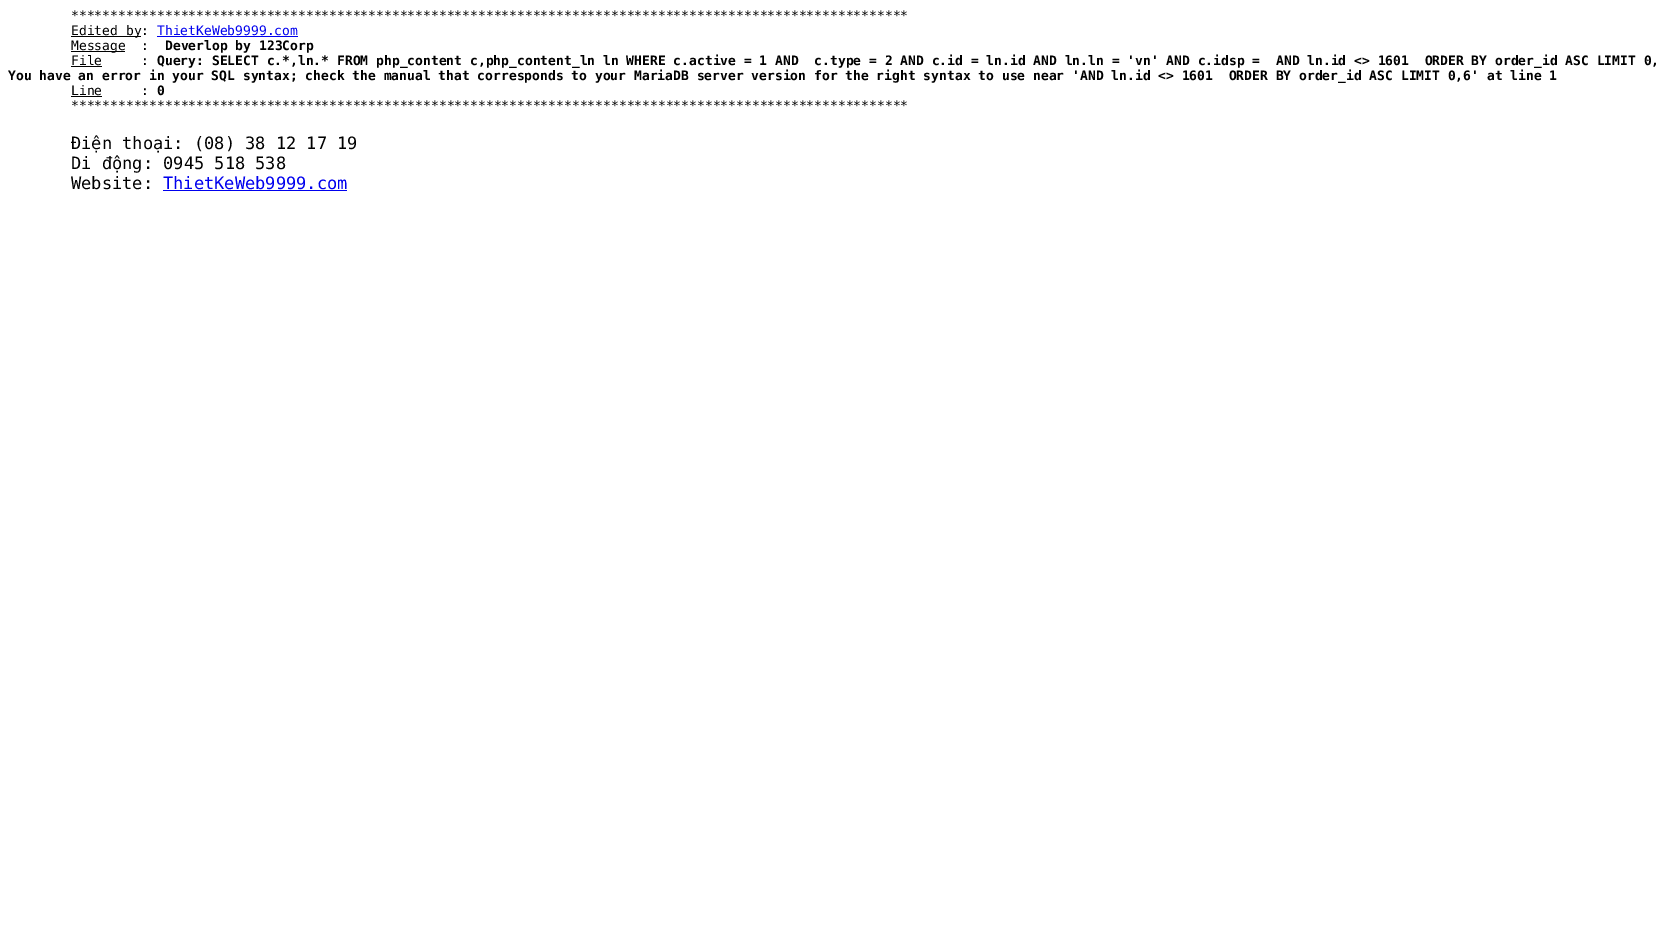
%!PS-Adobe-3.0
%%BoundingBox: 0 0 1656 950
%%LanguageLevel: 3
%%Pages: 1
%%EndComments
%%BeginProlog
/setink { dup -16 bitshift 255 div exch dup -8 bitshift 255 and 255 div exch 255 and 255 div setrgbcolor } def
/usefont { [ exch dup neg 0 0 3 -1 roll 0 0 ] selectfont } def
%%EndProlog
%%BeginSetup
<< /PageSize [1656 950] >> setpagedevice
%%EndSetup
%%Page: 1 1
0 950 translate 1 -1 scale
4 setmiterlimit
16#FFFFFF setink
0 0 1656 950 rectfill
/DejaVuSansMono-Regular 13 usefont
16#000000 setink
71 20 moveto (***********************************************************************************************************) show
71 36 70 1 rectfill
71 35 moveto (Edited by:) show
16#0000EE setink
157 35 moveto (ThietKeWeb9999.com) show
157 36 141 1 rectfill
16#000000 setink
71 51 54 1 rectfill
71 50 moveto (Message) show
141 50 moveto (:) show
/DejaVuSansMono-Bold 13 usefont
165 50 moveto (Deverlop by 123Corp) show
/DejaVuSansMono-Regular 13 usefont
71 65 moveto (File) show
71 66 31 1 rectfill
141 65 moveto (:) show
/DejaVuSansMono-Bold 13 usefont
157 65 moveto (Query: SELECT c.*,ln.* FROM php_content c,php_content_ln ln WHERE c.active = 1 AND  c.type = 2 AND c.id = ln.id AND ln.ln = 'vn' AND c.idsp =  AND ln.id <> 1601  ORDER BY order_id ASC LIMIT 0,) show
8 80 moveto (You have an error in your SQL syntax; check the manual that corresponds to your MariaDB server version for the right syntax to use near 'AND ln.id <> 1601  ORDER BY order_id ASC LIMIT 0,6' at line 1) show
/DejaVuSansMono-Regular 13 usefont
71 95 moveto (Line) show
71 96 31 1 rectfill
141 95 moveto (:) show
/DejaVuSansMono-Bold 13 usefont
157 95 moveto (0) show
/DejaVuSansMono-Regular 13 usefont
71 110 moveto (***********************************************************************************************************) show
/DejaVuSansMono-Regular 17 usefont
[
    [(Điện thoại: \(08\) 38 12 17 19) 71 149]
    [(Di động: 0945 518 538) 71 169]
    [(Website:) 71 189]
] { aload pop moveto show } forall
16#0000EE setink
163 189 moveto (ThietKeWeb9999.com) show
163 190 184 1 rectfill
showpage
%%EOF
